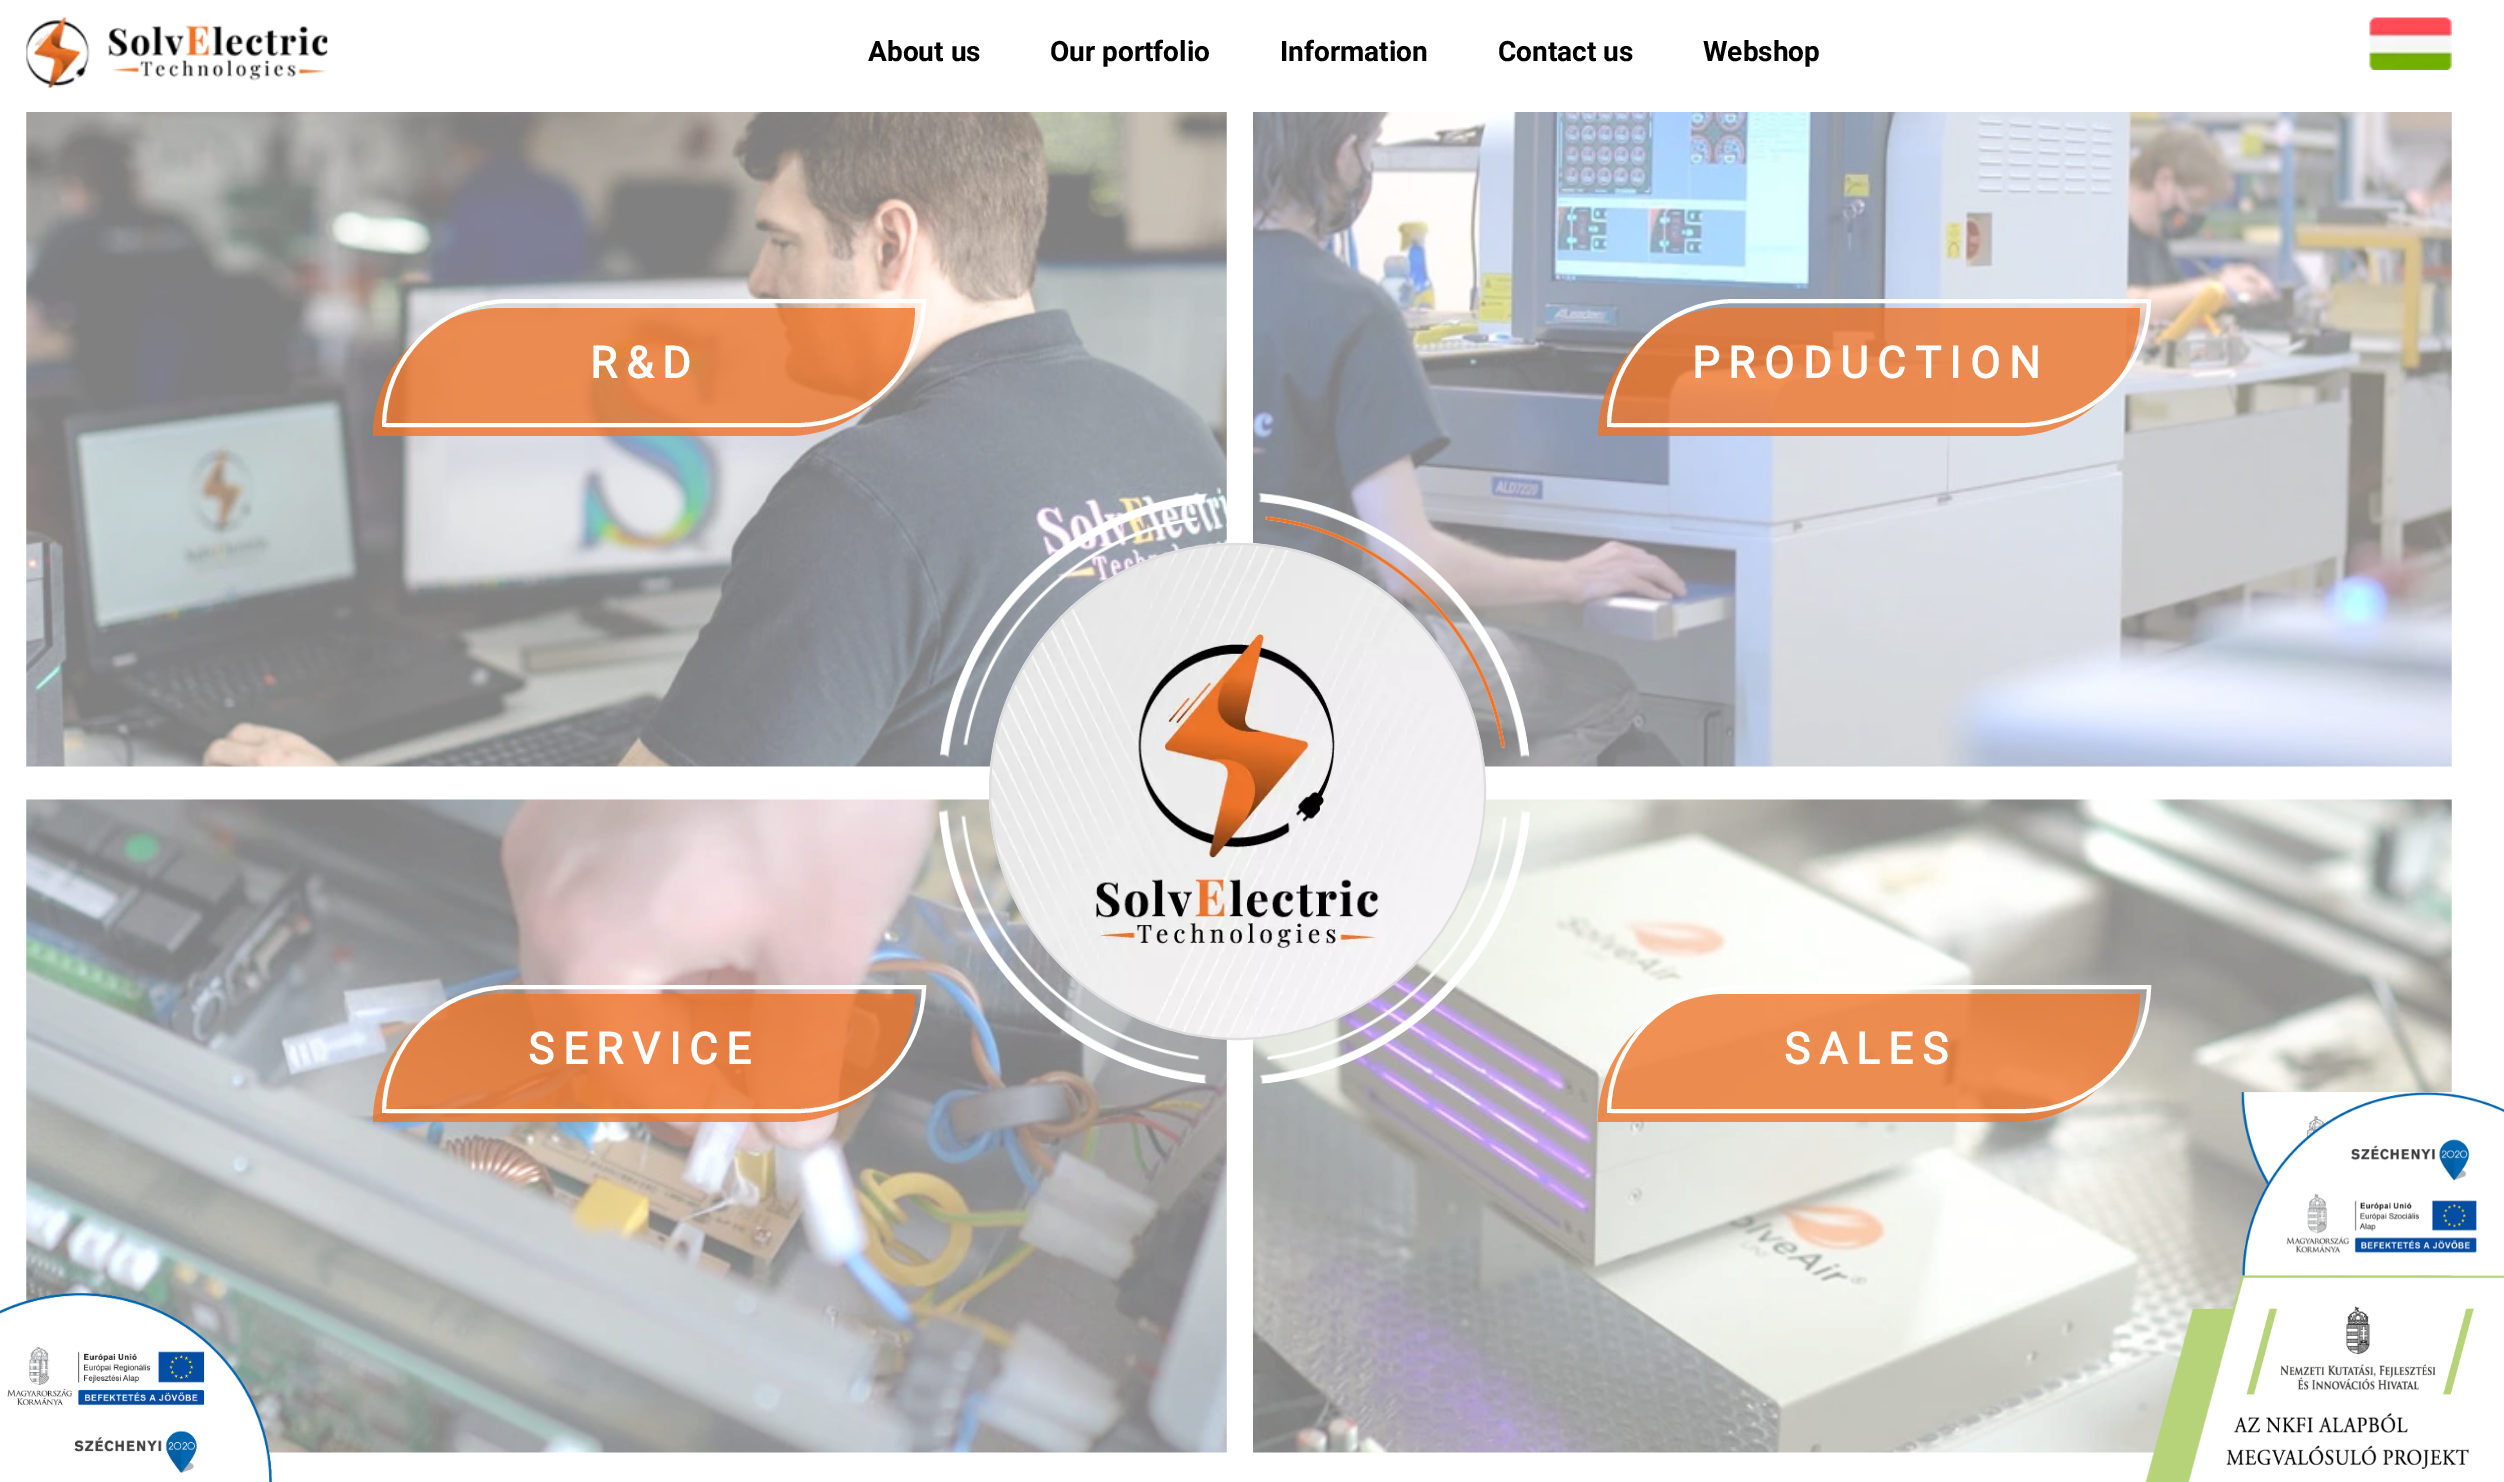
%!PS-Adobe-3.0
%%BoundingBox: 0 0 2504 1482
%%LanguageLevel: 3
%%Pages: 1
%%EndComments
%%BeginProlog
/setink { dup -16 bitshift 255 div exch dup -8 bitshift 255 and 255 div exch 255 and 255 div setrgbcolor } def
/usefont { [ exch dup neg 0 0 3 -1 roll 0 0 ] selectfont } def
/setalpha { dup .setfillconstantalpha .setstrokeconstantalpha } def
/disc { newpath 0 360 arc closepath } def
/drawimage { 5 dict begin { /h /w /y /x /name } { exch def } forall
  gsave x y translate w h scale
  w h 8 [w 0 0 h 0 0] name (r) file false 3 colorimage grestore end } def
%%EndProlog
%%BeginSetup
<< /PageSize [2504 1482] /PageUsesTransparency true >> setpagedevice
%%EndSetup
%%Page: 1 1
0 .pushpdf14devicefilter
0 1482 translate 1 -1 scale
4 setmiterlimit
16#FFFFFF setink
0 0 2504 1482 rectfill
(img1.raw) 26 17 302 71 drawimage
/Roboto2-Bold 28 usefont
16#000000 setink
[
    [(About us) 868 61]
    [(Our portfolio) 1050 61]
    [(Information) 1280 61]
    [(Contact us) 1498 61]
    [(Webshop) 1703 61]
] { aload pop moveto show } forall
(img2.raw) 2369 17 83 53 drawimage
(img3.raw) 26 112 1201 655 drawimage
0.8 setalpha
16#EE752B setink
501 308 moveto 915 308 lineto 915 378.5 857.5 436 787 436 curveto 373 436 lineto 373 365.5 430.5 308 501 308 curveto closepath fill
1 setalpha
16#FFFFFF setink
4 setlinewidth
510 301 moveto 924 301 lineto 924 299 lineto 924 368.5 867.5 425 798 425 curveto 384 425 lineto 384 427 lineto 384 357.5 440.5 301 510 301 curveto closepath stroke
/Roboto-Bold 43.75 usefont
590 378 moveto 8.75 0 (R&D) ashow
(img4.raw) 1253 112 1199 655 drawimage
0.8 setalpha
16#EE752B setink
1726 308 moveto 2140 308 lineto 2140 378.5 2082.5 436 2012 436 curveto 1598 436 lineto 1598 365.5 1655.5 308 1726 308 curveto closepath fill
1 setalpha
16#FFFFFF setink
1735 301 moveto 2149 301 lineto 2149 299 lineto 2149 368.5 2092.5 425 2023 425 curveto 1609 425 lineto 1609 427 lineto 1609 357.5 1665.5 301 1735 301 curveto closepath stroke
1692 378 moveto 8.75 0 (PRODUCTION) ashow
(img7.raw) 26 799 1201 654 drawimage
(img8.raw) 1253 799 1199 654 drawimage
(img5.raw) 939 493 591 591 drawimage
(img6.raw) 989 542 497 498 drawimage
16#DEDEDE setink
2 setlinewidth
1237.5 791.5 247.5 disc stroke
0.8 setalpha
16#EE752B setink
501 994 moveto 915 994 lineto 915 1064.5 857.5 1122 787 1122 curveto 373 1122 lineto 373 1051.5 430.5 994 501 994 curveto closepath fill
1 setalpha
16#FFFFFF setink
4 setlinewidth
510 987 moveto 924 987 lineto 924 985 lineto 924 1054.5 867.5 1111 798 1111 curveto 384 1111 lineto 384 1113 lineto 384 1043.5 440.5 987 510 987 curveto closepath stroke
528 1064 moveto 8.75 0 (SERVICE) ashow
0.8 setalpha
16#EE752B setink
1726 994 moveto 2140 994 lineto 2140 1064.5 2082.5 1122 2012 1122 curveto 1598 1122 lineto 1598 1051.5 1655.5 994 1726 994 curveto closepath fill
1 setalpha
16#FFFFFF setink
1735 987 moveto 2149 987 lineto 2149 985 lineto 2149 1054.5 2092.5 1111 2023 1111 curveto 1609 1111 lineto 1609 1113 lineto 1609 1043.5 1665.5 987 1735 987 curveto closepath stroke
1784 1064 moveto 8.75 0 (SALES) ashow
(img9.raw) 2241 1092 263 184 drawimage
(img10.raw) 2241 1092 263 184 drawimage
(img11.raw) 0 1293 273 189 drawimage
(img12.raw) 2145 1275 359 207 drawimage
.poppdf14devicefilter showpage
%%EOF
